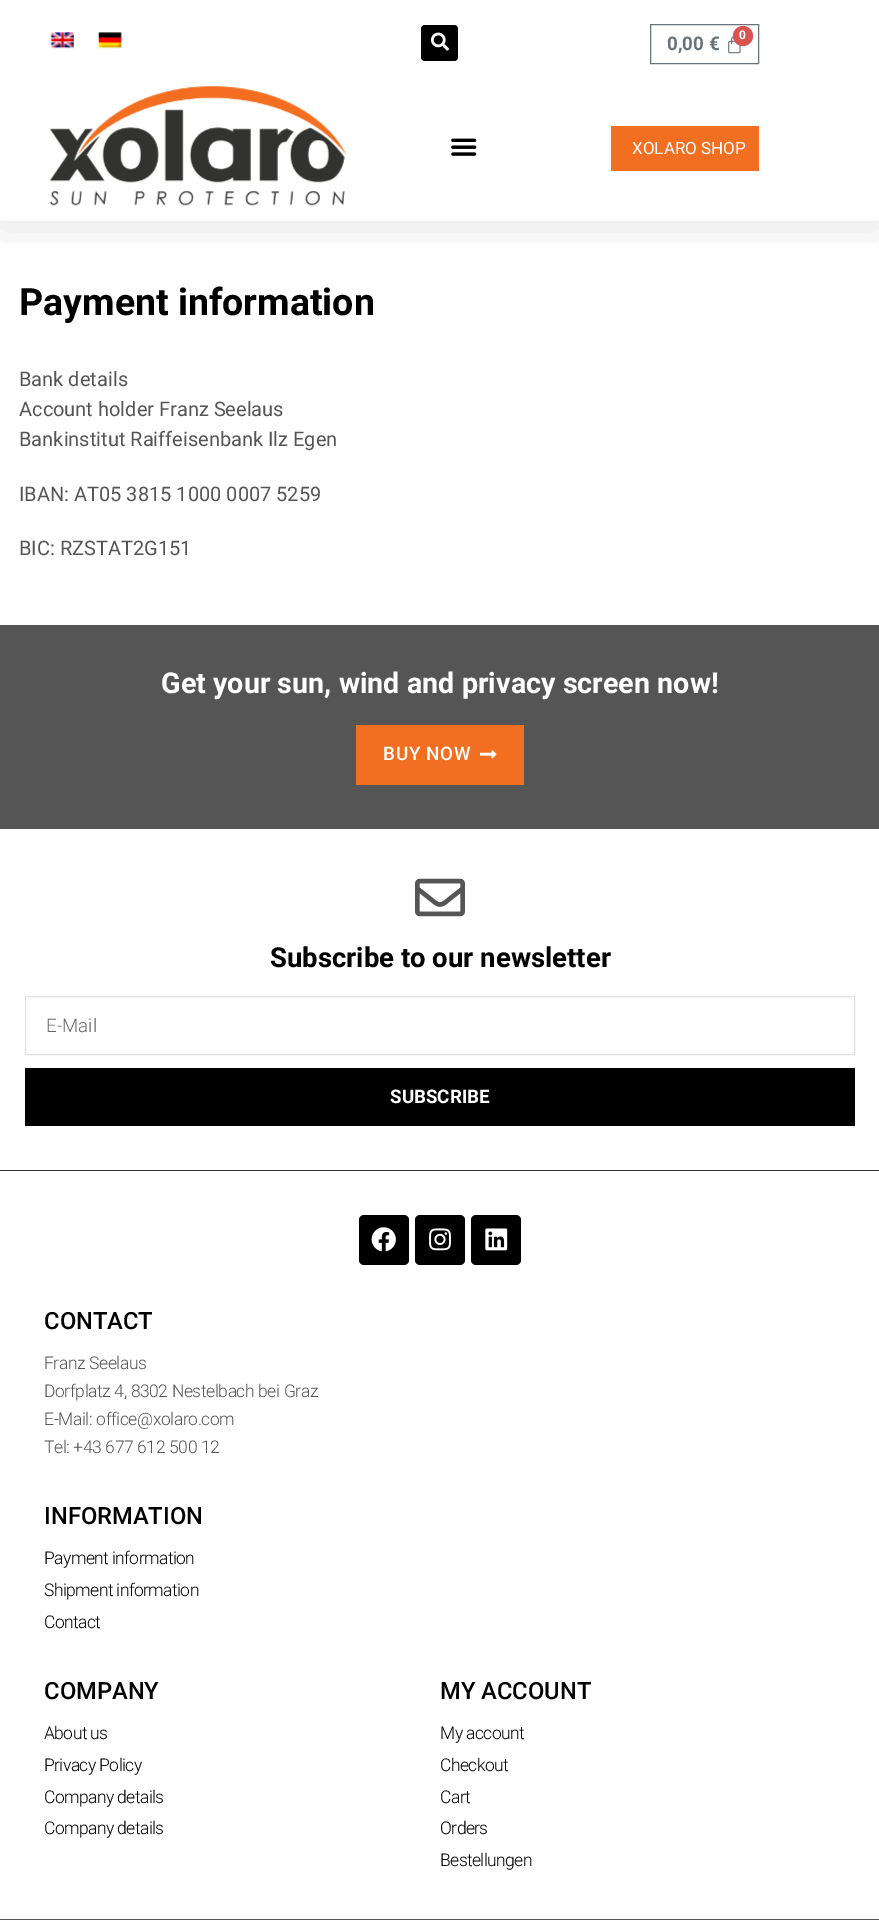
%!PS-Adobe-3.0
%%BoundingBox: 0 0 879 1920
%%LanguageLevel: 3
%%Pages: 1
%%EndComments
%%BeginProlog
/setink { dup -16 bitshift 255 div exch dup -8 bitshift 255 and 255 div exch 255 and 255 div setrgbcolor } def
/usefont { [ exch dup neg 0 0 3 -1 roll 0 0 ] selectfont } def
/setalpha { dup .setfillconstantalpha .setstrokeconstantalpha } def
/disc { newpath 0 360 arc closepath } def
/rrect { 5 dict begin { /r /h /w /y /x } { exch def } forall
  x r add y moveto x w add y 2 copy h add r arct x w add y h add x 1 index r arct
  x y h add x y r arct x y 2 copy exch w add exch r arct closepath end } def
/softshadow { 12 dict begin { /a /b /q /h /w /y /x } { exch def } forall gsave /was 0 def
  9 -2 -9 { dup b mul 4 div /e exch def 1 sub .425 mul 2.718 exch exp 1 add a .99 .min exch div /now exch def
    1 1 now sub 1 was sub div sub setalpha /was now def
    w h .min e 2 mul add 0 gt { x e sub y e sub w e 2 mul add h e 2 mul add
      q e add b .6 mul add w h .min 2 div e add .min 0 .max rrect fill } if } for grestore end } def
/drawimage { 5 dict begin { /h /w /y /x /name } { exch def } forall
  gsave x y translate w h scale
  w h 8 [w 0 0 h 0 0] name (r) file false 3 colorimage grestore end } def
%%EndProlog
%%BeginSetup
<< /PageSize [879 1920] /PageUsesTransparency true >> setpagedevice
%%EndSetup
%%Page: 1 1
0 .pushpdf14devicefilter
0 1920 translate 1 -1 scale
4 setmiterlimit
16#FFFFFF setink
0 0 879 1920 rectfill
gsave
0 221 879 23 rectclip
16#000000 setink
0 6 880 222 0 19 0.1 softshadow
grestore
(img1.raw) 50 32 24 17 drawimage
(img2.raw) 98 32 24 17 drawimage
16#000000 setink
421 25 37 36 4 rrect fill
(img3.raw) 430 32 19 19 drawimage
16#69727D setink
650.5 24.5 108 39 rectstroke
(img4.raw) 728 36 13 18 drawimage
16#D9534F setink
743 36 10 disc fill
/Roboto-Bold 12 usefont
16#FFFFFF setink
739 39 moveto (0) show
/Roboto-Bold 18.75 usefont
16#69727D setink
667 50 moveto (0,00 €) show
(img5.raw) 49 86 298 120 drawimage
(img6.raw) 451 138 26 18 drawimage
16#F26F21 setink
611 126 148 45 rectfill
/Roboto-Regular 17 usefont
16#FFFFFF setink
632 154 moveto (XOLARO SHOP) show
/Roboto-Bold 37.5 usefont
16#000000 setink
19 315 moveto (Payment information) show
/Roboto-Regular 20 usefont
16#555555 setink
[
    [(Bank details) 19 386]
    [(Account holder Franz Seelaus) 19 416]
    [(Bankinstitut Raiffeisenbank Ilz Egen) 19 446]
    [(IBAN: AT05 3815 1000 0007 5259) 19 501]
    [(BIC: RZSTAT2G151) 19 555]
] { aload pop moveto show } forall
0 625 879 204 rectfill
/Roboto-Bold 28.75 usefont
16#FFFFFF setink
161 693 moveto (Get your sun, wind and privacy screen now!) show
16#F26F21 setink
356 725 168 60 rectfill
/Roboto-Medium 18.75 usefont
16#FFFFFF setink
383 760 moveto 0.75 0 (BUY NOW) ashow
(img7.raw) 480 750 17 9 drawimage
16#333333 setink
0 1170 879 1 rectfill
(img8.raw) 415 878 50 39 drawimage
/Roboto-Bold 27.5 usefont
16#000000 setink
270 967 moveto (Subscribe to our newsletter) show
16#E0E0E0 setink
25.5 996.5 829 58 rectstroke
/Roboto-Light 18.75 usefont
16#666666 setink
46 1032 moveto (E-Mail) show
16#000000 setink
25 1068 830 58 rectfill
/Roboto-Bold 18.75 usefont
16#FFFFFF setink
390 1103 moveto (SUBSCRIBE) show
16#000000 setink
359 1215 50 50 5 rrect fill
(img9.raw) 371 1227 25 25 drawimage
415 1215 50 50 5 rrect fill
(img10.raw) 429 1228 22 23 drawimage
471 1215 50 50 5 rrect fill
(img11.raw) 485 1228 23 23 drawimage
/Roboto-Medium 23.75 usefont
44 1329 moveto (CONTACT) show
/Roboto-Light 17.5 usefont
16#555555 setink
44 1369 moveto -0.4 0 (Franz Seelaus) ashow
44 1397 moveto -0.4 0 (Dorfplatz 4, 8302 Nestelbach bei Graz) ashow
44 1425 moveto -0.4 0 (E-Mail: office@xolaro.com) ashow
44 1453 moveto -0.4 0 (Tel: +43 677 612 500 12) ashow
/Roboto-Medium 23.75 usefont
16#000000 setink
44 1524 moveto (INFORMATION) show
/Roboto-Light 17.5 usefont
44 1564 moveto -0.6 0 (Payment information) ashow
44 1596 moveto -0.6 0 (Shipment information) ashow
44 1628 moveto -0.6 0 (Contact) ashow
/Roboto-Medium 23.75 usefont
44 1699 moveto (COMPANY) show
/Roboto-Light 17.5 usefont
44 1739 moveto -0.6 0 (About us) ashow
44 1771 moveto -0.6 0 (Privacy Policy) ashow
44 1803 moveto -0.6 0 (Company details) ashow
44 1834 moveto -0.6 0 (Company details) ashow
/Roboto-Medium 23.75 usefont
440 1699 moveto (MY ACCOUNT) show
/Roboto-Light 17.5 usefont
440 1739 moveto -0.6 0 (My account) ashow
440 1771 moveto -0.6 0 (Checkout) ashow
440 1803 moveto -0.6 0 (Cart) ashow
440 1834 moveto -0.6 0 (Orders) ashow
440 1866 moveto -0.6 0 (Bestellungen) ashow
16#555555 setink
0 1919 879 1 rectfill
.poppdf14devicefilter showpage
%%EOF
